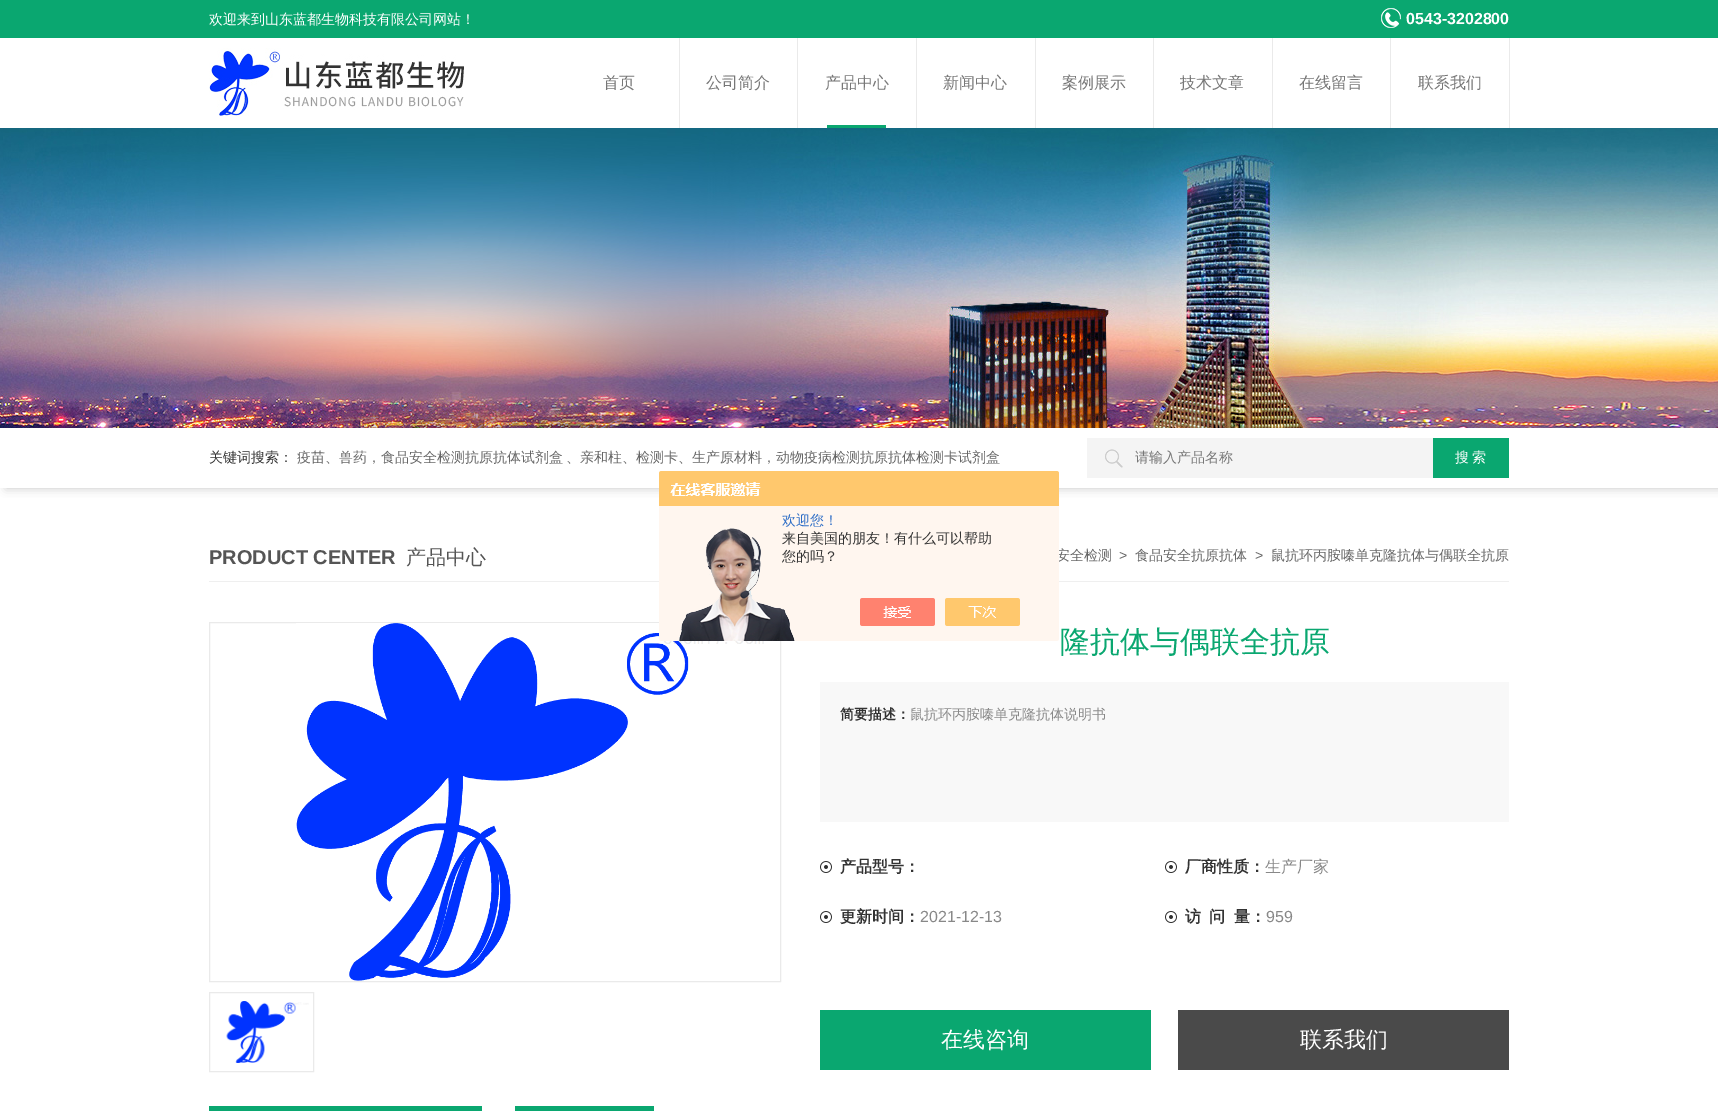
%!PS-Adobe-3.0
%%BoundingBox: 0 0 1718 1111
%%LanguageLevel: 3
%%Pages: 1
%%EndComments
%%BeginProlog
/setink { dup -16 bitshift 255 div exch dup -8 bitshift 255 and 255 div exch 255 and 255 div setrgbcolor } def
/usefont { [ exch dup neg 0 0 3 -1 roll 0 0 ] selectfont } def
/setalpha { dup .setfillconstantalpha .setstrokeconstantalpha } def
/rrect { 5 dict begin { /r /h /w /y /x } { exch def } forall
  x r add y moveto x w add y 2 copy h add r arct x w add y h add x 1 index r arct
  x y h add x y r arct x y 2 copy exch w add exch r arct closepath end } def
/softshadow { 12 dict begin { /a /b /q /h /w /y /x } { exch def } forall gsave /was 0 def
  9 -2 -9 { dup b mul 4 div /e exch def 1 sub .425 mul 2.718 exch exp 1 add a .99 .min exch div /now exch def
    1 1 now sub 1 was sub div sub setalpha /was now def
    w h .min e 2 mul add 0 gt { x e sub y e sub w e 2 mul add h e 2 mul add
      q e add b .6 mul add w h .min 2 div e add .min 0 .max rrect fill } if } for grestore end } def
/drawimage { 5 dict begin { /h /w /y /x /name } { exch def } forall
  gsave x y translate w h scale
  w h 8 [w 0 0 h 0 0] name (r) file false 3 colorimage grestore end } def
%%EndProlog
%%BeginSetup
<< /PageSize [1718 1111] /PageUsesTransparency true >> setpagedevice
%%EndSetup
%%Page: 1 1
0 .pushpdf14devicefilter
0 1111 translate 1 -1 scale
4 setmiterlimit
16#FFFFFF setink
0 0 1718 1111 rectfill
16#0AA770 setink
0 0 1718 38 rectfill
/WenQuanYiZenHei-Medium 14 usefont
16#FFFFFF setink
209 24 moveto (欢迎来到山东蓝都生物科技有限公司网站！) show
(img1.raw) 1381 8 20 20 drawimage
/LiberationSans-Bold 16 usefont
1406 24 moveto (0543-3202800) show
(img2.raw) 209 48 255 68 drawimage
16#EAEAEA setink
679 38 1 90 rectfill
/WenQuanYiZenHei-Medium 16 usefont
16#777777 setink
603 88 moveto (首页) show
16#EAEAEA setink
797 38 1 90 rectfill
16#777777 setink
706 88 moveto (公司简介) show
16#EAEAEA setink
916 38 1 90 rectfill
16#777777 setink
825 88 moveto (产品中心) show
16#0AA770 setink
827 125 59 3 rectfill
16#EAEAEA setink
1035 38 1 90 rectfill
16#777777 setink
943 88 moveto (新闻中心) show
16#EAEAEA setink
1153 38 1 90 rectfill
16#777777 setink
1062 88 moveto (案例展示) show
16#EAEAEA setink
1272 38 1 90 rectfill
16#777777 setink
1180 88 moveto (技术文章) show
16#EAEAEA setink
1390 38 1 90 rectfill
16#777777 setink
1299 88 moveto (在线留言) show
16#EAEAEA setink
1509 38 1 90 rectfill
16#777777 setink
1418 88 moveto (联系我们) show
gsave
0 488 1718 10 rectclip
16#C4C4C4 setink
6 428 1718 60 0 5 1 softshadow
grestore
(img3.raw) 0 128 1718 300 drawimage
/WenQuanYiZenHei-Medium 14 usefont
16#333333 setink
209 462 moveto (关键词搜索：) show
16#666666 setink
297 462 moveto -1 0 32 (疫苗、兽药，食品安全检测抗原抗体试剂盒 、亲和柱、检测卡、生产原材料，动物疫病检测抗原抗体检测卡试剂盒) widthshow
16#F4F4F4 setink
1087 438 346 40 rectfill
(img4.raw) 1105 449 18 19 drawimage
16#777777 setink
1135 462 moveto (请输入产品名称) show
16#0AA770 setink
1433 438 76 40 rectfill
16#FFFFFF setink
1455 462 moveto -1 0 32 (搜 索) widthshow
16#EFEFEF setink
209 581 1300 1 rectfill
16#666666 setink
1056 560 moveto (安全检测) show
16#EAEAEA setink
209.5 622.5 571 359 rectstroke
(img6.raw) 296 623 468 358 drawimage
(img5.raw) 659 471 400 170 drawimage
16#2E6EC6 setink
782 525 moveto (欢迎您！) show
16#333333 setink
782 543 moveto (来自美国的朋友！有什么可以帮助) show
782 561 moveto (您的吗？) show
/LiberationSans-Bold 20 usefont
16#555555 setink
209 564 moveto (PRODUCT CENTER) show
/WenQuanYiZenHei-Medium 20 usefont
406 564 moveto (产品中心) show
/LiberationSans-Regular 14 usefont
16#666666 setink
1119 560 moveto (>) show
/WenQuanYiZenHei-Medium 14 usefont
1135 560 moveto (食品安全抗原抗体) show
/LiberationSans-Regular 14 usefont
1255 560 moveto (>) show
/WenQuanYiZenHei-Medium 14 usefont
1271 560 moveto (鼠抗环丙胺嗪单克隆抗体与偶联全抗原) show
16#EAEAEA setink
209.5 992.5 104 79 rectstroke
(img7.raw) 226 1001 83 62 drawimage
/WenQuanYiZenHei-Medium 30 usefont
16#0AA770 setink
1060 652 moveto (隆抗体与偶联全抗原) show
16#F8F8F8 setink
820 682 689 140 rectfill
/WenQuanYiZenHei-Bold 14 usefont
16#333333 setink
840 719 moveto (简要描述：) show
/WenQuanYiZenHei-Medium 14 usefont
16#888888 setink
910 719 moveto (鼠抗环丙胺嗪单克隆抗体说明书) show
(img8.raw) 820 861 12 12 drawimage
/WenQuanYiZenHei-Bold 16 usefont
16#333333 setink
840 872 moveto (产品型号：) show
(img8.raw) 1165 861 12 12 drawimage
1185 872 moveto (厂商性质：) show
/WenQuanYiZenHei-Medium 16 usefont
16#888888 setink
1265 872 moveto (生产厂家) show
(img8.raw) 820 911 12 12 drawimage
/WenQuanYiZenHei-Bold 16 usefont
16#333333 setink
840 922 moveto (更新时间：) show
/LiberationSans-Regular 16 usefont
16#888888 setink
920 922 moveto (2021-12-13) show
(img8.raw) 1165 911 12 12 drawimage
/WenQuanYiZenHei-Bold 16 usefont
16#333333 setink
[
    [(访) 1185 922]
    [(问) 1209 922]
    [(量：) 1234 922]
] { aload pop moveto show } forall
/LiberationSans-Regular 16 usefont
16#888888 setink
1266 922 moveto (959) show
16#0AA770 setink
820 1010 331 60 rectfill
/WenQuanYiZenHei-Medium 22 usefont
16#FFFFFF setink
941 1047 moveto (在线咨询) show
16#4A4A4A setink
1178 1010 331 60 rectfill
16#FFFFFF setink
1300 1047 moveto (联系我们) show
16#0AA770 setink
209 1106 273 5 rectfill
515 1106 139 5 rectfill
.poppdf14devicefilter showpage
%%EOF
